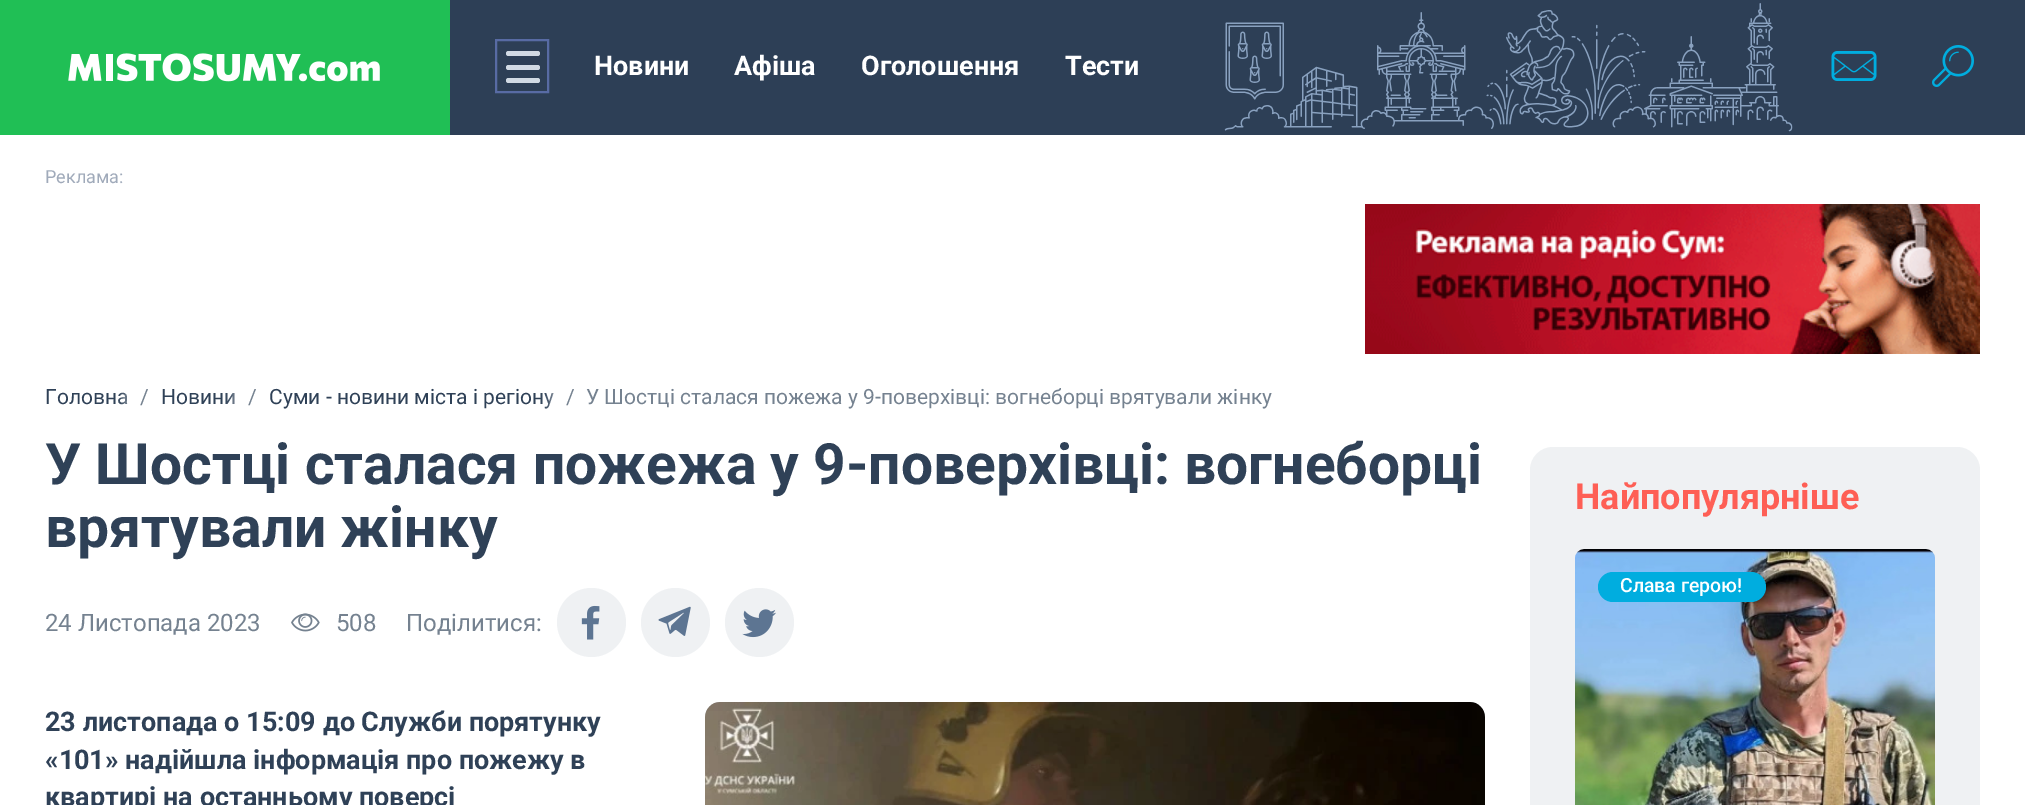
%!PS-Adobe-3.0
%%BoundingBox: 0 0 2025 805
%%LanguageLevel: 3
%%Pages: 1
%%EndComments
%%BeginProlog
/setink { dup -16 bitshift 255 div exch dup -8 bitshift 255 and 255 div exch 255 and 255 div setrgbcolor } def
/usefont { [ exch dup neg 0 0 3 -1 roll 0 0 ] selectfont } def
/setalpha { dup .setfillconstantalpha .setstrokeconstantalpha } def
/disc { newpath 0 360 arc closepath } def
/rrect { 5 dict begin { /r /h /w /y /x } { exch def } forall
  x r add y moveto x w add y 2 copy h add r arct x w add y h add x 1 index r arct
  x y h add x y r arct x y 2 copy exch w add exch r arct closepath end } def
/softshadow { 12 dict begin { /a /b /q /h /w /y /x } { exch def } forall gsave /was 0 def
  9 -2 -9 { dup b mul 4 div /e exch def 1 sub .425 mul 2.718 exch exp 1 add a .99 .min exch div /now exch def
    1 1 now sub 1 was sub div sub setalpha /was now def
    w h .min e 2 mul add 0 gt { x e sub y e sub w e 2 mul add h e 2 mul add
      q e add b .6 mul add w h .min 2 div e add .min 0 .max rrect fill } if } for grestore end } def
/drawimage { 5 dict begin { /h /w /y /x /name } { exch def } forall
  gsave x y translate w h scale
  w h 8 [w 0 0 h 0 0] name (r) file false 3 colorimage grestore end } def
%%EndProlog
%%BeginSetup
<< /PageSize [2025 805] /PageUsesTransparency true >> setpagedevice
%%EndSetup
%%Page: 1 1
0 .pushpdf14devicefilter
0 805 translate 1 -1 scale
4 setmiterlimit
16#FFFFFF setink
0 0 2025 805 rectfill
16#2D3F56 setink
450 0 1575 135 rectfill
(img1.raw) 1224 3 569 129 drawimage
16#20BF55 setink
0 0 450 135 rectfill
(img2.raw) 68 53 312 29 drawimage
16#586BA4 setink
2 setlinewidth
496 40 52 52 rectstroke
16#D1DAE4 setink
506 51 34 5 2.5 rrect fill
506 65 34 5 2.5 rrect fill
506 78 34 5 2.5 rrect fill
/Roboto-Bold 27 usefont
16#FFFFFF setink
[
    [(Новини) 594 75]
    [(Афіша) 734 75]
    [(Оголошення) 861 75]
    [(Тести) 1065 75]
] { aload pop moveto show } forall
(img3.raw) 1831 51 46 30 drawimage
(img4.raw) 1932 45 42 42 drawimage
/Roboto-Regular 18 usefont
16#A0AABA setink
45 183 moveto (Реклама:) show
(img5.raw) 1365 204 615 150 drawimage
/Roboto-Regular 21 usefont
16#2F4157 setink
45 404 moveto (Головна) show
gsave
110 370 moveto 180 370 lineto 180 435 lineto 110 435 lineto closepath 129 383 moveto 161 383 lineto 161 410 lineto 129 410 lineto closepath eoclip newpath
16#FFFFFF setink
129 389 32 27 0 6 0.9 softshadow
grestore
16#758290 setink
140 404 moveto (/) show
16#2F4157 setink
161 404 moveto (Новини) show
gsave
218 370 moveto 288 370 lineto 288 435 lineto 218 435 lineto closepath 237 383 moveto 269 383 lineto 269 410 lineto 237 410 lineto closepath eoclip newpath
16#FFFFFF setink
237 389 32 27 0 6 0.9 softshadow
grestore
16#758290 setink
248 404 moveto (/) show
16#2F4157 setink
269 404 moveto (Суми - новини міста і регіону) show
gsave
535 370 moveto 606 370 lineto 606 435 lineto 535 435 lineto closepath 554 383 moveto 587 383 lineto 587 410 lineto 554 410 lineto closepath eoclip newpath
16#FFFFFF setink
554 389 33 27 0 6 0.9 softshadow
grestore
16#758290 setink
566 404 moveto (/) show
586 404 moveto (У Шостці сталася пожежа у 9-поверхівці: вогнеборці врятували жінку) show
/Roboto-Bold 57 usefont
16#2F4157 setink
45 484 moveto (У Шостці сталася пожежа у 9-поверхівці: вогнеборці) show
45 547 moveto (врятували жінку) show
/Roboto-Regular 24 usefont
16#758290 setink
45 631 moveto (24 Листопада 2023) show
(img6.raw) 291 613 29 19 drawimage
336 631 moveto (508) show
406 631 moveto (Поділитися:) show
16#EFF1F3 setink
591.5 622.5 34.5 disc fill
(img7.raw) 581 605 19 35 drawimage
675.5 622.5 34.5 disc fill
(img8.raw) 658 606 33 30 drawimage
759.5 622.5 34.5 disc fill
(img9.raw) 742 609 34 29 drawimage
/Roboto-Bold 27 usefont
16#2F4157 setink
[
    [(23 листопада о 15:09 до Служби порятунку) 45 731]
    [(«101» надійшла інформація про пожежу в) 45 769]
    [(квартирі на останньому поверсі) 45 806]
] { aload pop moveto show } forall
(img10.raw) 705 702 780 103 drawimage
16#EFF1F3 setink
1530 447 450 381 23 rrect fill
/Roboto-Bold 36 usefont
16#FE5F55 setink
1575 509 moveto (Найпопулярніше) show
(img11.raw) 1575 549 360 256 drawimage
16#00ADDF setink
1598 572 168 30 15 rrect fill
/Roboto-Medium 19.5 usefont
16#FFFFFF setink
1620 592 moveto (Слава герою!) show
.poppdf14devicefilter showpage
%%EOF
